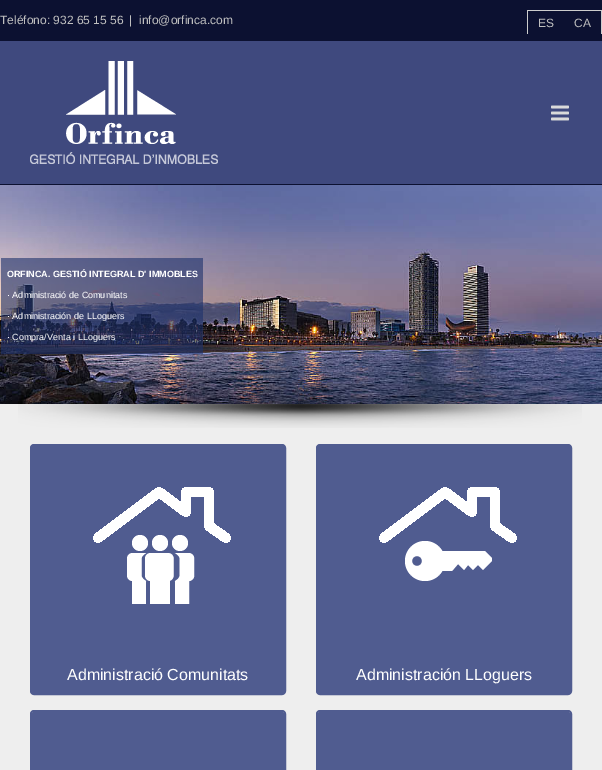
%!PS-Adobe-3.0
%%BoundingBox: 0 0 602 770
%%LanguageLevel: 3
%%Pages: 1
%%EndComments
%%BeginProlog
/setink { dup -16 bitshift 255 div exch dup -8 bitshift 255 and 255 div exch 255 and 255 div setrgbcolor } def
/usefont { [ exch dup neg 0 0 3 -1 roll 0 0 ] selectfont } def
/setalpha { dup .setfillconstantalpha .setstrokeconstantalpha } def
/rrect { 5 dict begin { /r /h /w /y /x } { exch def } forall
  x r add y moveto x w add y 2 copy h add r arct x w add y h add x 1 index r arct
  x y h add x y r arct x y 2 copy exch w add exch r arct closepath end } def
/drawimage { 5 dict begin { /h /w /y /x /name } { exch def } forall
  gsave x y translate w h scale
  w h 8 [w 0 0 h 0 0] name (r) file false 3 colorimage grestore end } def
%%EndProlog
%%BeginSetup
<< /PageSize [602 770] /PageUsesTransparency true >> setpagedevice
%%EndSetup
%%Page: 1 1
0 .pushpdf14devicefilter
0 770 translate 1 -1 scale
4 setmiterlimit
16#0C1131 setink
0 0 602 770 rectfill
/LiberationSans-Regular 12 usefont
16#BFBFBF setink
[
    [(Teléfono: 932 65 15 56) 0 24]
    [(|) 129 24]
    [(info@orfinca.com) 139 24]
] { aload pop moveto show } forall
[
    [527 10 75 1 16#CDCDCD]
    [601 10 1 24 16#CDCDCD]
    [527 10 1 24 16#CDCDCD]
] { aload pop setink rectfill } forall
16#BFBFBF setink
538 27 moveto (ES) show
574 27 moveto (CA) show
16#3F497E setink
0 41 602 143 rectfill
(img1.raw) 30 61 188 103 drawimage
(img2.raw) 551 105 18 16 drawimage
(img3.raw) 0 185 602 219 drawimage
0.6 setalpha
16#1C306B setink
1 258 202 96 rectfill
/LiberationSans-Bold 9 usefont
1 setalpha
16#FFFFFF setink
7 277 moveto (ORFINCA. GESTIÓ INTEGRAL D' IMMOBLES) show
/LiberationSans-Regular 9 usefont
[
    [(· Administració de Comunitats) 7 298]
    [(· Administración de LLoguers) 7 319]
    [(· Compra/Venta i LLoguers) 7 340]
] { aload pop moveto show } forall
16#EEEEEE setink
0 404 602 366 rectfill
(img4.raw) 18 404 564 24 drawimage
16#505C90 setink
31 445 254 249 3 rrect gsave fill grestore
2 setlinewidth
stroke
(img5.raw) 93 487 138 117 drawimage
/LiberationSans-Regular 16 usefont
16#FFFFFF setink
67 680 moveto (Administració Comunitats) show
16#505C90 setink
317 445 254 249 3 rrect gsave fill grestore
stroke
(img6.raw) 379 487 138 94 drawimage
16#FFFFFF setink
356 680 moveto (Administración LLoguers) show
16#505C90 setink
32 712 252 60 2 rrect fill
31 711 254 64 3 rrect stroke
318 712 252 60 2 rrect fill
317 711 254 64 3 rrect stroke
.poppdf14devicefilter showpage
%%EOF
